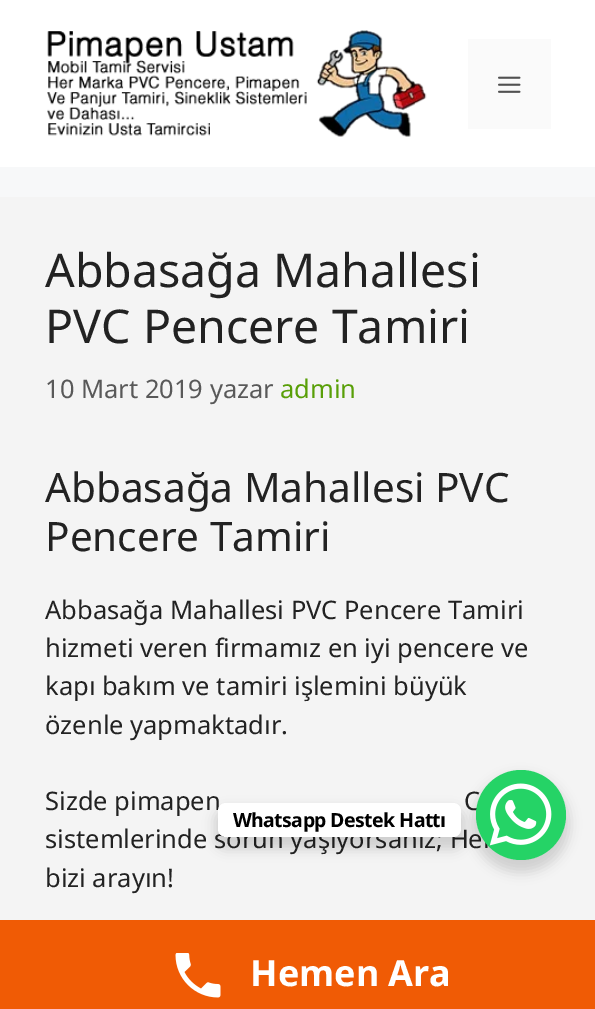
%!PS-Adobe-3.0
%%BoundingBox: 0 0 595 1009
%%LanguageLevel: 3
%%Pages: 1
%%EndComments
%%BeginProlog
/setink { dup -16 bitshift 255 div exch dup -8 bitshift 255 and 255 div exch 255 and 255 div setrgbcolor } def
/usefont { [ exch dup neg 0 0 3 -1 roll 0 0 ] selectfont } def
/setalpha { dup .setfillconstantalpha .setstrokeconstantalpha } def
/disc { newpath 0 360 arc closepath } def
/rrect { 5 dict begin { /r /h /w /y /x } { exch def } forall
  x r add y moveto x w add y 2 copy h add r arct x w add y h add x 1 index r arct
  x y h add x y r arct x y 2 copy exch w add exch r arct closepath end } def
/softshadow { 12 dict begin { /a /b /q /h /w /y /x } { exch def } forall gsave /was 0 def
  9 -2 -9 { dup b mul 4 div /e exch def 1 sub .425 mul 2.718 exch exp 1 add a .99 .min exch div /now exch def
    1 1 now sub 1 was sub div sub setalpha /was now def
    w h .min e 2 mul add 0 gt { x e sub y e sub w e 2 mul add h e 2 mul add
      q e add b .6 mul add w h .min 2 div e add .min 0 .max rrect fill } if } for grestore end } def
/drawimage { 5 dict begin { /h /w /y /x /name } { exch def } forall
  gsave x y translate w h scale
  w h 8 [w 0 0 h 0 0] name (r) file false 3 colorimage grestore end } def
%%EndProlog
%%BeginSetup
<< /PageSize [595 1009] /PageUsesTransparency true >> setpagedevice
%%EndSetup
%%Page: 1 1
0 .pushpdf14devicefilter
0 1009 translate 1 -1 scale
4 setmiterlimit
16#F7F8F9 setink
0 0 595 1009 rectfill
16#FFFFFF setink
0 0 595 167 rectfill
(img1.raw) 47 30 380 107 drawimage
16#FAFAFA setink
468 39 83 90 rectfill
(img2.raw) 498 76 23 17 drawimage
16#F4F4F4 setink
0 197 595 723 rectfill
/NotoSans-Regular 46.5 usefont
16#222222 setink
45 287 moveto (Abbasağa Mahallesi) show
45 343 moveto (PVC Pencere Tamiri) show
/NotoSans-Regular 25.5 usefont
16#595959 setink
45 398 moveto (10 Mart 2019 yazar) show
16#599F08 setink
280 398 moveto (admin) show
/NotoSans-Regular 40.5 usefont
16#222222 setink
45 502 moveto (Abbasağa Mahallesi PVC) show
45 551 moveto (Pencere Tamiri) show
/NotoSans-Regular 25.5 usefont
[
    [(Abbasağa Mahallesi PVC Pencere Tamiri) 45 619]
    [(hizmeti veren firmamız en iyi pencere ve) 45 657]
    [(kapı bakım ve tamiri işlemini büyük) 45 695]
    [(özenle yapmaktadır.) 45 734]
    [(Sizde pimapen) 45 810]
    [(C) 464 810]
    [(sistemlerinde sorun yaşıyorsanız; Hem) 45 848]
    [(bizi arayın!) 45 887]
] { aload pop moveto show } forall
16#000000 setink
473 776 96 96 48 6 0.15 softshadow
16#25D366 setink
521 815 45 disc fill
16#000000 setink
215 809 249 40 11 6 0.15 softshadow
16#FFFFFF setink
218 803 243 34 8 rrect fill
/NotoSans-Bold 19.5 usefont
16#000000 setink
233 827 moveto -0.6 0 (Whatsapp Destek Hattı) ashow
(img3.raw) 489 783 63 63 drawimage
16#F05B05 setink
0 920 595 89 rectfill
(img4.raw) 175 953 46 45 drawimage
/NotoSans-Bold 36 usefont
16#FFFFFF setink
250 986 moveto (Hemen Ara) show
.poppdf14devicefilter showpage
%%EOF
